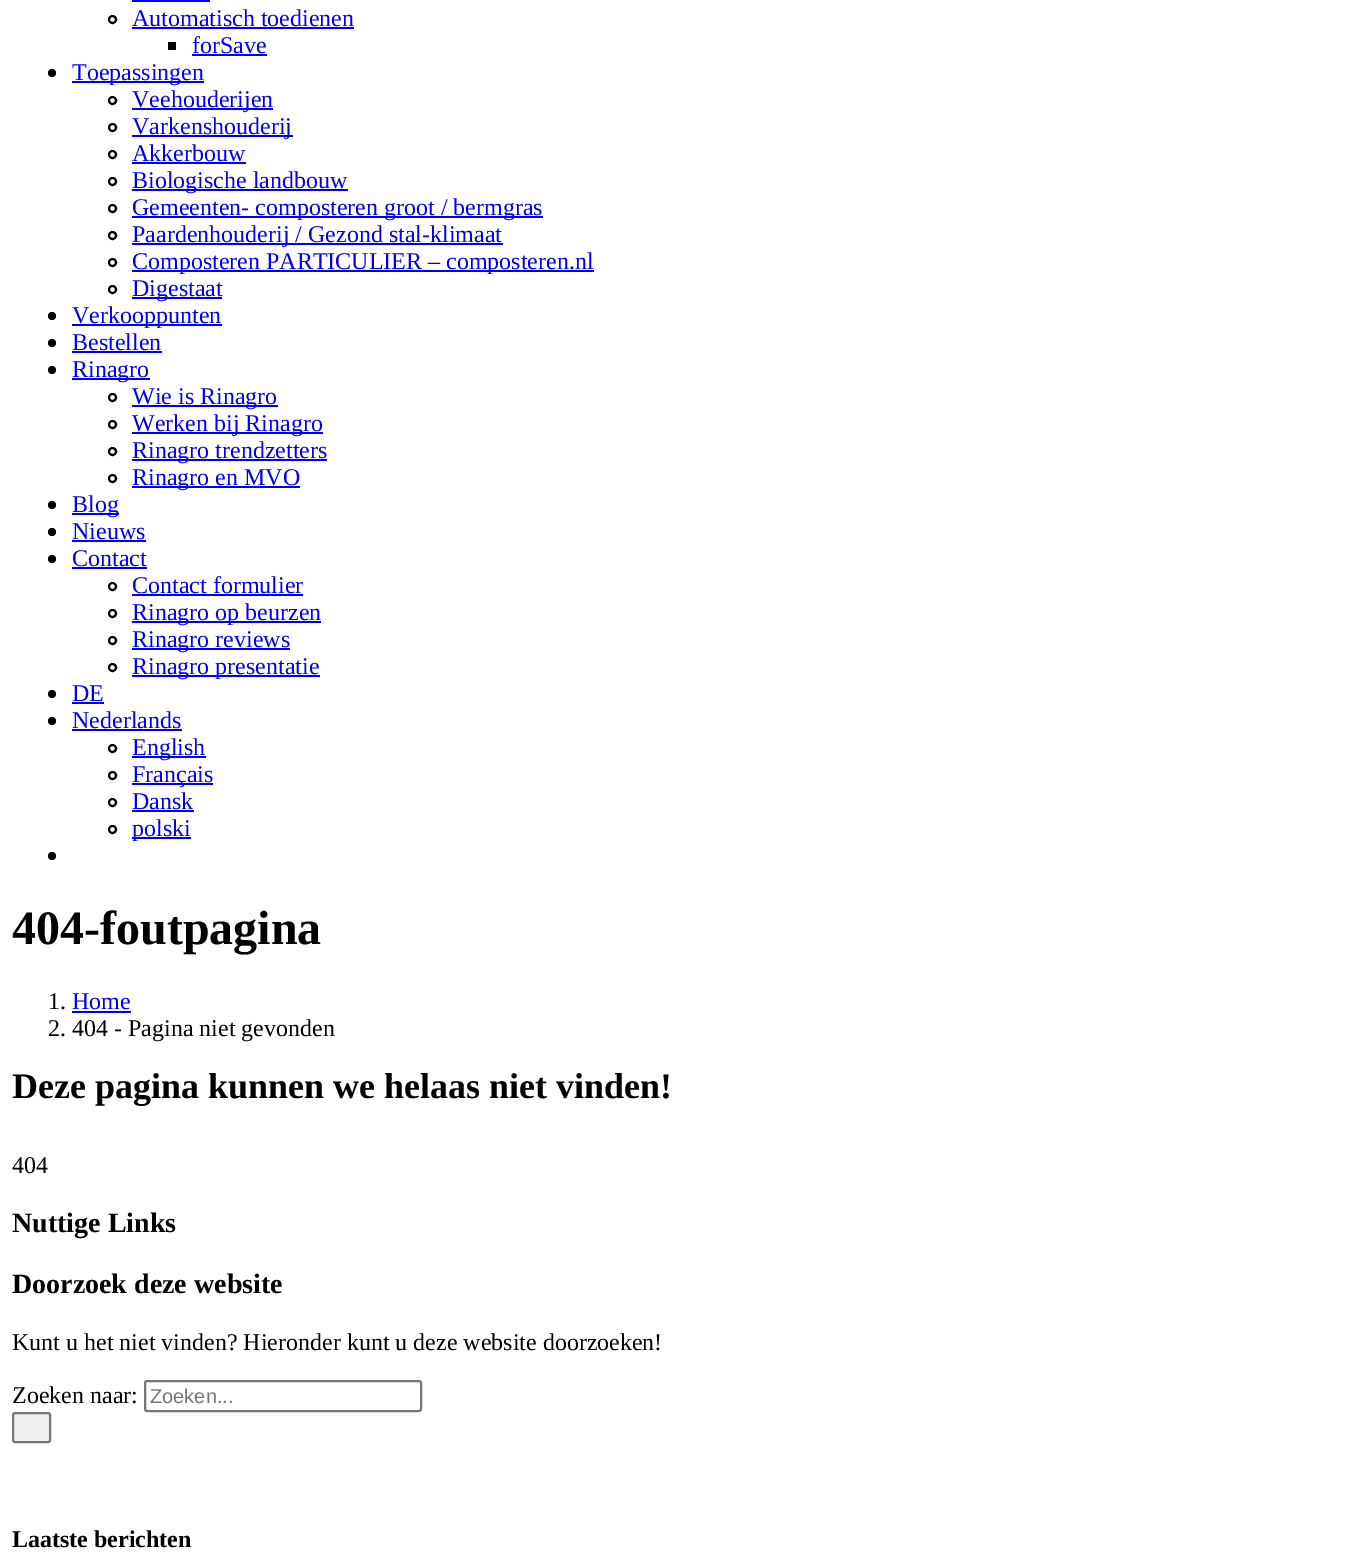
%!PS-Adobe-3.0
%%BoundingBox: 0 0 1367 1557
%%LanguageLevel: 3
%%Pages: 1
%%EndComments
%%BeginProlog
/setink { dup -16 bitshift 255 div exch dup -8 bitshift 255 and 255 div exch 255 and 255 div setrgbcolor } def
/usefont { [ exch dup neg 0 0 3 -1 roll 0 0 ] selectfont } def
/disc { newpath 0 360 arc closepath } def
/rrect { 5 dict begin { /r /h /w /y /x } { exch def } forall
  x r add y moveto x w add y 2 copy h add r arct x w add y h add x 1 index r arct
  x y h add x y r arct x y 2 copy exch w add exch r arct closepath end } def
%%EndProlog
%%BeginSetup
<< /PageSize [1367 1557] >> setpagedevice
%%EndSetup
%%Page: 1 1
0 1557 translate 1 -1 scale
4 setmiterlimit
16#FFFFFF setink
0 0 1367 1557 rectfill
16#0000EE setink
132 0 78 2 rectfill
16#000000 setink
2 setlinewidth
112.5 19.5 3.5 disc stroke
/LiberationSerif-Regular 24 usefont
16#0000EE setink
132 26 moveto (Automatisch toedienen) show
132 27 222 2 rectfill
16#000000 setink
168 42 8 8 rectfill
16#0000EE setink
192 53 moveto (forSave) show
192 54 75 2 rectfill
16#000000 setink
52 73 4 disc fill
16#0000EE setink
72 81 132 2 rectfill
72 80 moveto (Toepassingen) show
16#000000 setink
112.5 100.5 3.5 disc stroke
16#0000EE setink
132 108 141 2 rectfill
132 107 moveto (Veehouderijen) show
16#000000 setink
112.5 127.5 3.5 disc stroke
16#0000EE setink
132 135 161 2 rectfill
132 134 moveto (Varkenshouderij) show
16#000000 setink
112.5 154.5 3.5 disc stroke
16#0000EE setink
132 161 moveto (Akkerbouw) show
132 162 114 2 rectfill
16#000000 setink
112.5 181.5 3.5 disc stroke
16#0000EE setink
132 189 216 2 rectfill
132 188 moveto (Biologische landbouw) show
16#000000 setink
112.5 208.5 3.5 disc stroke
16#0000EE setink
132 216 411 2 rectfill
132 215 moveto (Gemeenten- composteren groot / bermgras) show
16#000000 setink
112.5 235.5 3.5 disc stroke
16#0000EE setink
132 243 371 2 rectfill
132 242 moveto (Paardenhouderij / Gezond stal-klimaat) show
16#000000 setink
112.5 262.5 3.5 disc stroke
16#0000EE setink
132 270 462 2 rectfill
132 269 moveto (Composteren PARTICULIER – composteren.nl) show
16#000000 setink
112.5 289.5 3.5 disc stroke
16#0000EE setink
132 297 90 2 rectfill
132 296 moveto (Digestaat) show
16#000000 setink
52 316 4 disc fill
16#0000EE setink
72 324 150 2 rectfill
72 323 moveto (Verkooppunten) show
16#000000 setink
52 343 4 disc fill
16#0000EE setink
72 350 moveto (Bestellen) show
72 351 90 2 rectfill
16#000000 setink
52 370 4 disc fill
16#0000EE setink
72 378 78 2 rectfill
72 377 moveto (Rinagro) show
16#000000 setink
112.5 397.5 3.5 disc stroke
16#0000EE setink
132 405 146 2 rectfill
132 404 moveto (Wie is Rinagro) show
16#000000 setink
112.5 424.5 3.5 disc stroke
16#0000EE setink
132 432 191 2 rectfill
132 431 moveto (Werken bij Rinagro) show
16#000000 setink
112.5 451.5 3.5 disc stroke
16#0000EE setink
132 459 195 2 rectfill
132 458 moveto (Rinagro trendzetters) show
16#000000 setink
112.5 478.5 3.5 disc stroke
16#0000EE setink
132 486 168 2 rectfill
132 485 moveto (Rinagro en MVO) show
16#000000 setink
52 505 4 disc fill
16#0000EE setink
72 513 47 2 rectfill
72 512 moveto (Blog) show
16#000000 setink
52 532 4 disc fill
16#0000EE setink
72 539 moveto (Nieuws) show
72 540 74 2 rectfill
16#000000 setink
52 559 4 disc fill
16#0000EE setink
72 566 moveto (Contact) show
72 567 75 2 rectfill
16#000000 setink
112.5 586.5 3.5 disc stroke
16#0000EE setink
132 593 moveto (Contact formulier) show
132 594 171 2 rectfill
16#000000 setink
112.5 613.5 3.5 disc stroke
16#0000EE setink
132 621 189 2 rectfill
132 620 moveto (Rinagro op beurzen) show
16#000000 setink
112.5 640.5 3.5 disc stroke
16#0000EE setink
132 648 158 2 rectfill
132 647 moveto (Rinagro reviews) show
16#000000 setink
112.5 667.5 3.5 disc stroke
16#0000EE setink
132 675 188 2 rectfill
132 674 moveto (Rinagro presentatie) show
16#000000 setink
52 694 4 disc fill
16#0000EE setink
72 701 moveto (DE) show
72 702 32 2 rectfill
16#000000 setink
52 721 4 disc fill
16#0000EE setink
72 728 moveto (Nederlands) show
72 729 110 2 rectfill
16#000000 setink
112.5 748.5 3.5 disc stroke
16#0000EE setink
132 756 74 2 rectfill
132 755 moveto (English) show
16#000000 setink
112.5 775.5 3.5 disc stroke
16#0000EE setink
132 783 81 2 rectfill
132 782 moveto (Français) show
16#000000 setink
112.5 802.5 3.5 disc stroke
16#0000EE setink
132 809 moveto (Dansk) show
132 810 62 2 rectfill
16#000000 setink
112.5 829.5 3.5 disc stroke
16#0000EE setink
132 837 59 2 rectfill
132 836 moveto (polski) show
16#000000 setink
52 856 4 disc fill
/LiberationSerif-Bold 48 usefont
12 944 moveto (404-foutpagina) show
/LiberationSerif-Regular 24 usefont
48 1009 moveto (1.) show
16#0000EE setink
72 1009 moveto (Home) show
72 1011 59 2 rectfill
16#000000 setink
48 1036 moveto (2. 404 - Pagina niet gevonden) show
/LiberationSerif-Bold 36 usefont
12 1098 moveto (Deze pagina kunnen we helaas niet vinden!) show
/LiberationSerif-Regular 24 usefont
12 1173 moveto (404) show
/LiberationSerif-Bold 28 usefont
12 1232 moveto (Nuttige Links) show
12 1293 moveto (Doorzoek deze website) show
/LiberationSerif-Regular 24 usefont
12 1350 moveto (Kunt u het niet vinden? Hieronder kunt u deze website doorzoeken!) show
12 1403 moveto (Zoeken naar:) show
16#767676 setink
145 1381 276 30 2 rrect stroke
/LiberationSans-Regular 20 usefont
16#757575 setink
150 1403 moveto (Zoeken...) show
16#EFEFEF setink
13 1413 37 29 2 rrect gsave fill grestore
16#767676 setink
stroke
/LiberationSerif-Bold 24 usefont
16#000000 setink
12 1547 moveto (Laatste berichten) show
showpage
%%EOF
